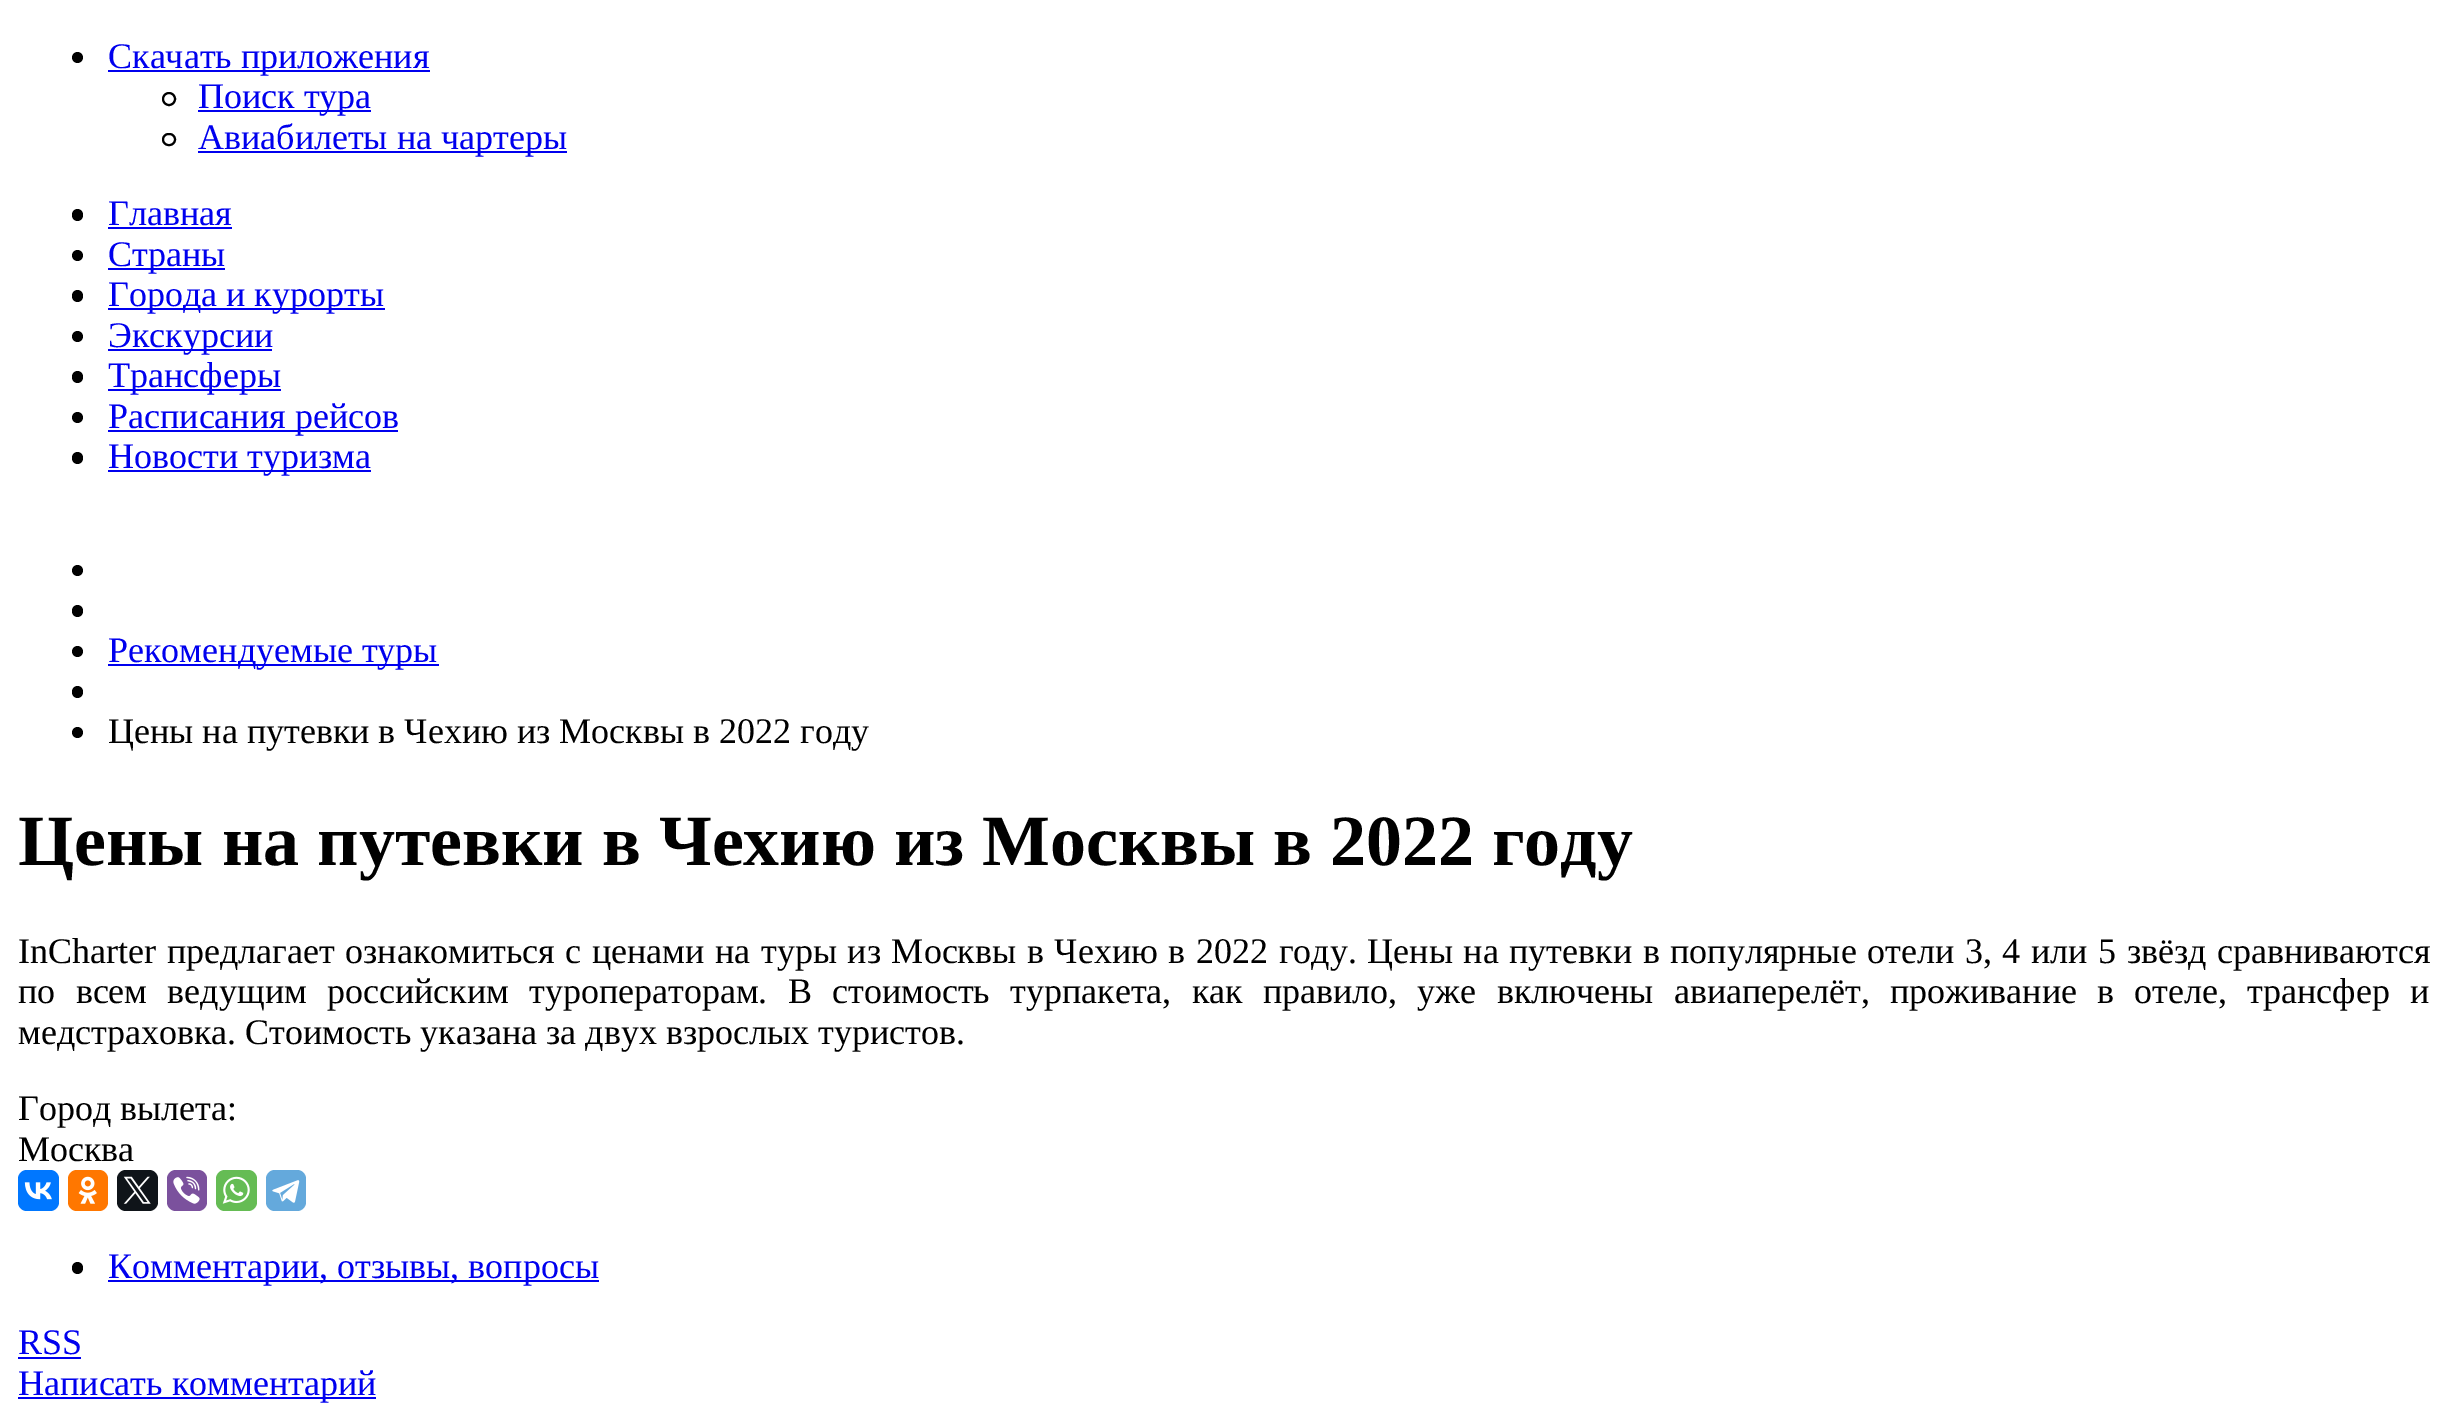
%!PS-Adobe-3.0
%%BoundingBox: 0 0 2446 1418
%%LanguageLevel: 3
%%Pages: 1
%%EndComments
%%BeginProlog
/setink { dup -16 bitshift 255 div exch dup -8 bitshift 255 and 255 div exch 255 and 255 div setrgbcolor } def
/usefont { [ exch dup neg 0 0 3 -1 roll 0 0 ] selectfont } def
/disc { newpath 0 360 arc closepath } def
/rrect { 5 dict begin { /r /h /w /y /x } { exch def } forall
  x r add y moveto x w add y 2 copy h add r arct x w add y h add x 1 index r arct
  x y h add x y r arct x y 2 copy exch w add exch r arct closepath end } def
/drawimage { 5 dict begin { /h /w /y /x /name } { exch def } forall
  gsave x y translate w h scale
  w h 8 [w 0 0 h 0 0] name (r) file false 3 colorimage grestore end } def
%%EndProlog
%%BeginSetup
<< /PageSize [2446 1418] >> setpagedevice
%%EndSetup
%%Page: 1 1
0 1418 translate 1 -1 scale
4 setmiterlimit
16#FFFFFF setink
0 0 2446 1418 rectfill
16#000000 setink
77.5 57.5 5.5 disc fill
16#0000EE setink
108 70 322 2 rectfill
/LiberationSerif-Regular 36 usefont
108 68 moveto (Скачать приложения) show
16#000000 setink
2 setlinewidth
169 99 6 disc stroke
16#0000EE setink
198 110 173 2 rectfill
198 108 moveto (Поиск тура) show
16#000000 setink
163 134 12 11 5.5 rrect stroke
16#0000EE setink
198 151 369 2 rectfill
198 149 moveto (Авиабилеты на чартеры) show
16#000000 setink
72 209 11 12 5.5 rrect fill
16#0000EE setink
108 225 moveto (Главная) show
108 227 124 2 rectfill
16#000000 setink
77.5 255.5 5.5 disc fill
16#0000EE setink
108 268 117 2 rectfill
108 266 moveto (Страны) show
16#000000 setink
72 290 11 12 5.5 rrect fill
16#0000EE setink
108 308 277 2 rectfill
108 306 moveto (Города и курорты) show
16#000000 setink
77.5 336.5 5.5 disc fill
16#0000EE setink
108 349 164 2 rectfill
108 347 moveto (Экскурсии) show
16#000000 setink
72 371 11 12 5.5 rrect fill
16#0000EE setink
108 389 173 2 rectfill
108 387 moveto (Трансферы) show
16#000000 setink
77.5 417.5 5.5 disc fill
16#0000EE setink
108 430 290 2 rectfill
108 428 moveto (Расписания рейсов) show
16#000000 setink
72 452 11 12 5.5 rrect fill
16#0000EE setink
108 470 263 2 rectfill
108 468 moveto (Новости туризма) show
16#000000 setink
77.5 570.5 5.5 disc fill
72 605 11 12 5.5 rrect fill
77.5 651.5 5.5 disc fill
16#0000EE setink
108 664 331 2 rectfill
108 662 moveto (Рекомендуемые туры) show
16#000000 setink
72 686 11 12 5.5 rrect fill
77.5 732.5 5.5 disc fill
108 743 moveto (Цены на путевки в Чехию из Москвы в 2022 году) show
/LiberationSerif-Bold 72 usefont
18 865 moveto (Цены на путевки в Чехию из Москвы в 2022 году) show
/LiberationSerif-Regular 36 usefont
18 963 moveto 1.6 0 32 (InCharter предлагает ознакомиться с ценами на туры из Москвы в Чехию в 2022 году. Цены на путевки в популярные отели 3, 4 или 5 звёзд сравниваются) widthshow
18 1003 moveto 11.25 0 32 (по всем ведущим российским туроператорам. В стоимость турпакета, как правило, уже включены авиаперелёт, проживание в отеле, трансфер и) widthshow
[
    [(медстраховка. Стоимость указана за двух взрослых туристов.) 18 1044]
    [(Город вылета:) 18 1120]
    [(Москва) 18 1161]
] { aload pop moveto show } forall
16#0077FF setink
18 1170 41 41 9 rrect fill
(img1.raw) 24 1182 28 18 drawimage
16#FF7700 setink
68 1170 40 41 9 rrect fill
(img2.raw) 78 1176 19 28 drawimage
16#0F1419 setink
117 1170 41 41 9 rrect fill
(img3.raw) 123 1176 28 28 drawimage
16#7B519D setink
167 1170 40 41 9 rrect fill
(img4.raw) 173 1176 27 28 drawimage
16#65BC54 setink
216 1170 41 41 9 rrect fill
(img5.raw) 222 1176 28 28 drawimage
16#64A9DC setink
266 1170 40 41 9 rrect fill
(img6.raw) 272 1180 28 23 drawimage
16#000000 setink
72 1262 11 12 5.5 rrect fill
16#0000EE setink
108 1280 491 2 rectfill
108 1278 moveto (Комментарии, отзывы, вопросы) show
18 1354 moveto (RSS) show
18 1357 63 2 rectfill
18 1397 358 2 rectfill
18 1395 moveto (Написать комментарий) show
showpage
%%EOF
